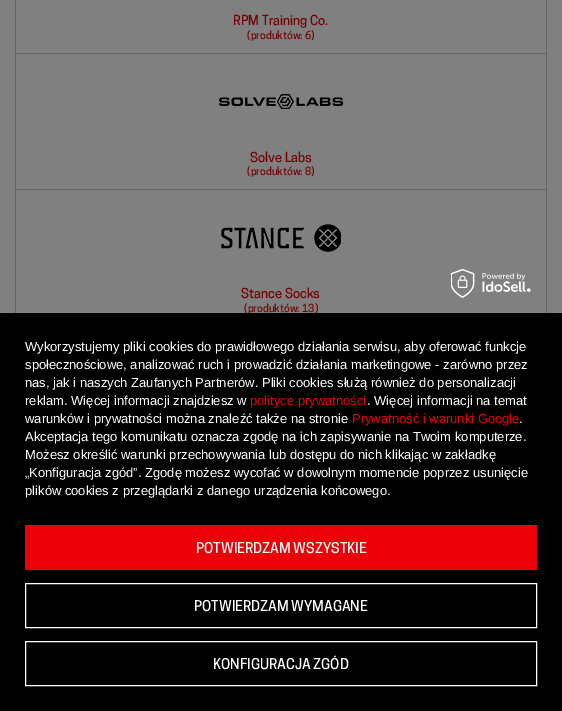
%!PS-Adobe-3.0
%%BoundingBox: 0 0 562 711
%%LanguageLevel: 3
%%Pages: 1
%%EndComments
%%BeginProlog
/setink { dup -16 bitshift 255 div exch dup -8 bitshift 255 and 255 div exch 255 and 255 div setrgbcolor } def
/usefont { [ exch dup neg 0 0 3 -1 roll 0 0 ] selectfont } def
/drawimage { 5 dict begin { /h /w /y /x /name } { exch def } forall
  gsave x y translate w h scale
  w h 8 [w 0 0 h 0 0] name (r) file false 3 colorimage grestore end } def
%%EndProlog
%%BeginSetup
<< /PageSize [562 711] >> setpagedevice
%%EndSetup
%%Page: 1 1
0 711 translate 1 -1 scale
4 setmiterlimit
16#808080 setink
0 0 562 711 rectfill
[
    [15 0 1 313 16#626464]
    [546 0 1 313 16#626464]
    [16 53 531 1 16#626464]
] { aload pop setink rectfill } forall
/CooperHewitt-Medium 13 usefont
16#750003 setink
233 25 moveto (RPM Training Co.) show
/CooperHewitt-Medium 10.5 usefont
247 39 moveto (\(produktów: 6\)) show
16#626464 setink
16 189 531 1 rectfill
(img1.raw) 219 94 124 15 drawimage
/CooperHewitt-Medium 13 usefont
16#750003 setink
250 162 moveto (Solve Labs) show
/CooperHewitt-Medium 10.5 usefont
247 175 moveto (\(produktów: 8\)) show
(img2.raw) 221 224 120 28 drawimage
/CooperHewitt-Medium 13 usefont
241 298 moveto (Stance Socks) show
/CooperHewitt-Medium 10.5 usefont
244 312 moveto (\(produktów: 13\)) show
16#000000 setink
0 313 562 398 rectfill
(img3.raw) 451 269 80 29 drawimage
/LiberationSans-Regular 13 usefont
16#FFFFFF setink
[
    [(Wykorzystujemy pliki cookies do prawidłowego działania serwisu, aby oferować funkcje) 25 351]
    [(społecznościowe, analizować ruch i prowadzić działania marketingowe - zarówno przez) 25 369]
    [(nas, jak i naszych Zaufanych Partnerów. Pliki cookies służą również do personalizacji) 25 387]
    [(reklam. Więcej informacji znajdziesz w) 25 405]
] { aload pop moveto show } forall
16#EA0006 setink
250 405 moveto (polityce prywatności) show
16#FFFFFF setink
367 405 moveto (. Więcej informacji na temat) show
25 423 moveto (warunków i prywatności można znaleźć także na stronie) show
16#EA0006 setink
352 423 moveto (Prywatność i warunki Google) show
16#FFFFFF setink
[
    [(.) 519 423]
    [(Akceptacja tego komunikatu oznacza zgodę na ich zapisywanie na Twoim komputerze.) 25 441]
    [(Możesz określić warunki przechowywania lub dostępu do nich klikając w zakładkę) 25 459]
    [(„Konfiguracja zgód”. Zgodę możesz wycofać w dowolnym momencie poprzez usunięcie) 25 477]
    [(plików cookies z przeglądarki z danego urządzenia końcowego.) 25 495]
] { aload pop moveto show } forall
16#EA0006 setink
25 525 512 45 rectfill
/CooperHewitt-Medium 14 usefont
16#FFFFFF setink
196 553 moveto (POTWIERDZAM WSZYSTKIE) show
25.5 583.5 511 44 rectstroke
194 611 moveto (POTWIERDZAM WYMAGANE) show
25.5 641.5 511 44 rectstroke
213 669 moveto (KONFIGURACJA ZGÓD) show
showpage
%%EOF
